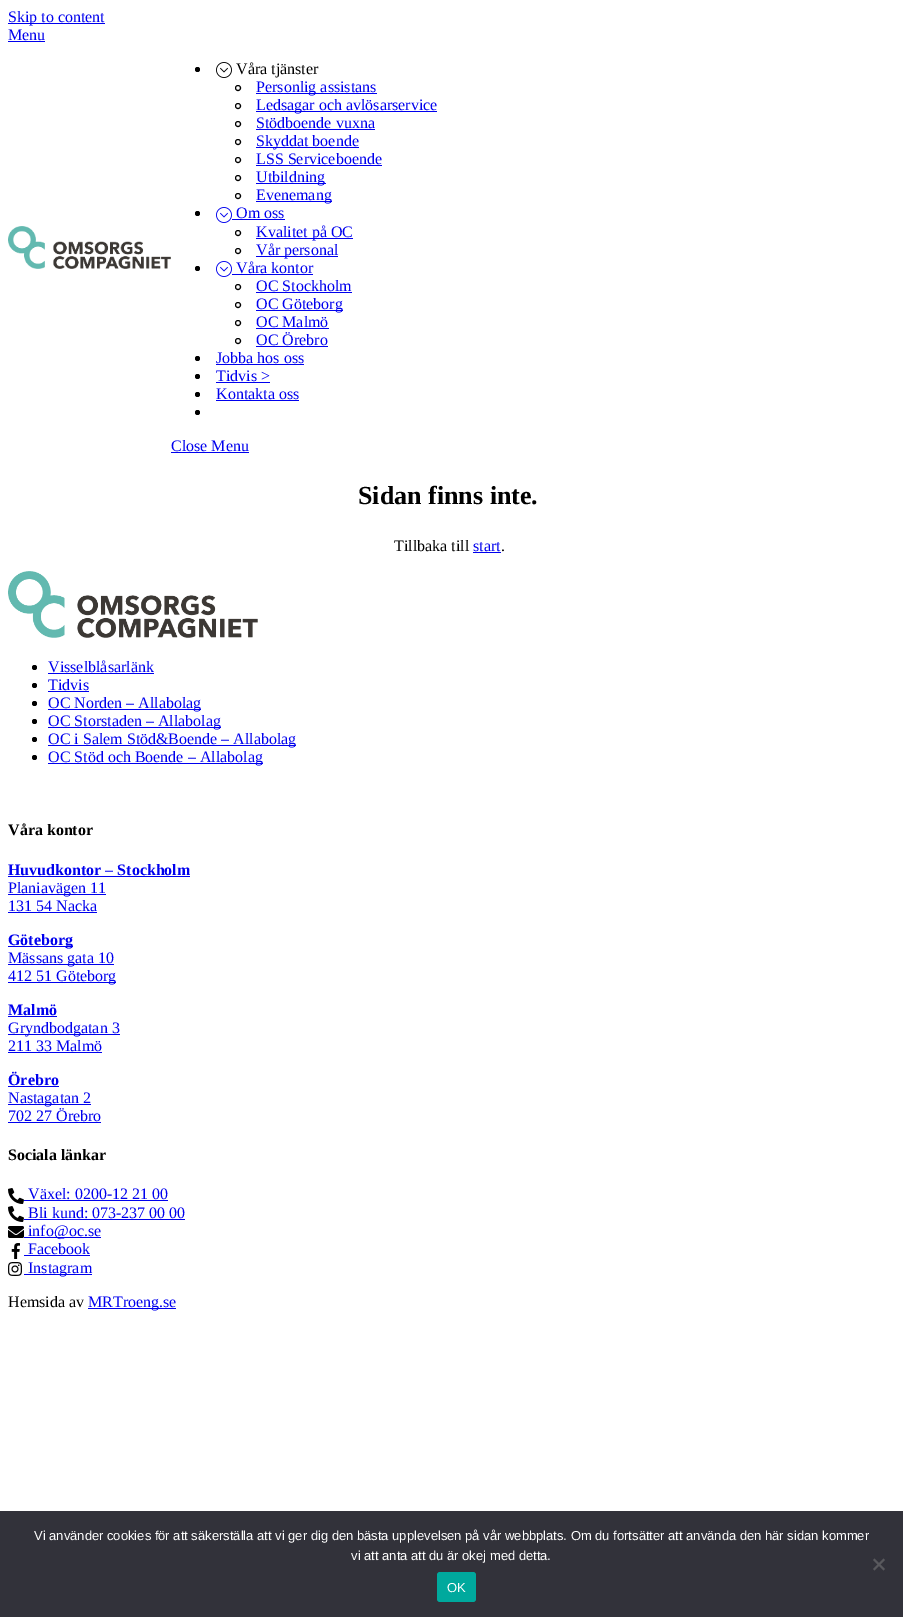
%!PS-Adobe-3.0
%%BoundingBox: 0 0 903 1617
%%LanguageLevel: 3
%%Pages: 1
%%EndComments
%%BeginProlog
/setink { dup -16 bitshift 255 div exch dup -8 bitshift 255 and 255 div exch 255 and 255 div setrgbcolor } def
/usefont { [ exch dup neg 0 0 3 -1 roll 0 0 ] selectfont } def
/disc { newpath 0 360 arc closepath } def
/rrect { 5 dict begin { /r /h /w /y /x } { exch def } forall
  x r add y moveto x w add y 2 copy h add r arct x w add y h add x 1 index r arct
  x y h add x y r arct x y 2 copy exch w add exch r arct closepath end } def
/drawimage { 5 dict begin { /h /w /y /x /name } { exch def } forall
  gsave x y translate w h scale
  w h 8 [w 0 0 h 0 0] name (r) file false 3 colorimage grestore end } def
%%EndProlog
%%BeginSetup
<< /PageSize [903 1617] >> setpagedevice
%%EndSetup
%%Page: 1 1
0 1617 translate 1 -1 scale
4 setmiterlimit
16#FFFFFF setink
0 0 903 1617 rectfill
16#0000EE setink
8 23 97 1 rectfill
/LiberationSerif-Regular 16 usefont
8 22 moveto (Skip to content) show
8 40 moveto (Menu) show
8 41 37 1 rectfill
(img1.raw) 8 226 163 43 drawimage
16#000000 setink
197.5 69.5 2.5 disc fill
(img2.raw) 216 62 16 16 drawimage
236 74 moveto (Våra tjänster) show
238 88 2.5 disc stroke
16#0000EE setink
256 93 121 1 rectfill
256 92 moveto (Personlig assistans) show
16#000000 setink
238 106 2.5 disc stroke
16#0000EE setink
256 111 181 1 rectfill
256 110 moveto (Ledsagar och avlösarservice) show
16#000000 setink
238 124 2.5 disc stroke
16#0000EE setink
256 128 moveto (Stödboende vuxna) show
256 129 119 1 rectfill
16#000000 setink
238 142 2.5 disc stroke
16#0000EE setink
256 147 103 1 rectfill
256 146 moveto (Skyddat boende) show
16#000000 setink
238 160 2.5 disc stroke
16#0000EE setink
256 164 moveto (LSS Serviceboende) show
256 165 126 1 rectfill
16#000000 setink
238 178 2.5 disc stroke
16#0000EE setink
256 183 70 1 rectfill
256 182 moveto (Utbildning) show
16#000000 setink
238 196 2.5 disc stroke
16#0000EE setink
256 201 76 1 rectfill
256 200 moveto (Evenemang) show
16#000000 setink
197.5 213.5 2.5 disc fill
(img3.raw) 216 207 16 16 drawimage
16#0000EE setink
236 218 moveto (Om oss) show
232 219 53 1 rectfill
16#000000 setink
238 233 2.5 disc stroke
16#0000EE setink
256 238 97 1 rectfill
256 237 moveto (Kvalitet på OC) show
16#000000 setink
238 251 2.5 disc stroke
16#0000EE setink
256 256 82 1 rectfill
256 255 moveto (Vår personal) show
16#000000 setink
197.5 268.5 2.5 disc fill
(img3.raw) 216 261 16 16 drawimage
16#0000EE setink
236 273 moveto (Våra kontor) show
232 274 81 1 rectfill
16#000000 setink
238 287 2.5 disc stroke
16#0000EE setink
256 291 moveto (OC Stockholm) show
256 292 96 1 rectfill
16#000000 setink
238 305 2.5 disc stroke
16#0000EE setink
256 310 87 1 rectfill
256 309 moveto (OC Göteborg) show
16#000000 setink
238 323 2.5 disc stroke
16#0000EE setink
256 327 moveto (OC Malmö) show
256 328 73 1 rectfill
16#000000 setink
238 341 2.5 disc stroke
16#0000EE setink
256 345 moveto (OC Örebro) show
256 346 72 1 rectfill
16#000000 setink
197.5 358.5 2.5 disc fill
16#0000EE setink
216 363 moveto (Jobba hos oss) show
216 364 88 1 rectfill
16#000000 setink
197.5 376.5 2.5 disc fill
16#0000EE setink
216 381 moveto (Tidvis >) show
216 382 54 1 rectfill
16#000000 setink
197.5 394.5 2.5 disc fill
16#0000EE setink
216 399 moveto (Kontakta oss) show
216 400 83 1 rectfill
16#000000 setink
197.5 412.5 2.5 disc fill
16#0000EE setink
171 451 moveto (Close Menu) show
171 452 78 1 rectfill
/LiberationSerif-Bold 26 usefont
16#000000 setink
358 504 moveto (Sidan finns inte.) show
/LiberationSerif-Regular 16 usefont
394 551 moveto (Tillbaka till) show
16#0000EE setink
473 551 moveto (start) show
473 552 28 1 rectfill
16#000000 setink
501 551 moveto (.) show
(img4.raw) 8 571 250 67 drawimage
34.5 667.5 2.5 disc fill
16#0000EE setink
48 672 moveto (Visselblåsarlänk) show
48 673 106 1 rectfill
16#000000 setink
34.5 685.5 2.5 disc fill
16#0000EE setink
48 690 moveto (Tidvis) show
48 691 41 1 rectfill
16#000000 setink
34.5 703.5 2.5 disc fill
16#0000EE setink
48 709 153 1 rectfill
48 708 moveto (OC Norden – Allabolag) show
16#000000 setink
34.5 721.5 2.5 disc fill
16#0000EE setink
48 727 173 1 rectfill
48 726 moveto (OC Storstaden – Allabolag) show
16#000000 setink
34.5 739.5 2.5 disc fill
16#0000EE setink
48 745 248 1 rectfill
48 744 moveto (OC i Salem Stöd&Boende – Allabolag) show
16#000000 setink
34.5 757.5 2.5 disc fill
16#0000EE setink
48 763 215 1 rectfill
48 762 moveto (OC Stöd och Boende – Allabolag) show
/LiberationSerif-Bold 16 usefont
16#000000 setink
8 835 moveto (Våra kontor) show
16#0000EE setink
8 875 moveto (Huvudkontor – Stockholm) show
8 876 182 1 rectfill
8 894 98 1 rectfill
/LiberationSerif-Regular 16 usefont
8 893 moveto (Planiavägen 11) show
8 911 moveto (131 54 Nacka) show
8 912 89 1 rectfill
8 946 65 1 rectfill
/LiberationSerif-Bold 16 usefont
8 945 moveto (Göteborg) show
8 964 106 1 rectfill
/LiberationSerif-Regular 16 usefont
8 963 moveto (Mässans gata 10) show
8 982 108 1 rectfill
8 981 moveto (412 51 Göteborg) show
/LiberationSerif-Bold 16 usefont
8 1015 moveto (Malmö) show
8 1016 49 1 rectfill
8 1034 112 1 rectfill
/LiberationSerif-Regular 16 usefont
8 1033 moveto (Gryndbodgatan 3) show
8 1051 moveto (211 33 Malmö) show
8 1052 94 1 rectfill
/LiberationSerif-Bold 16 usefont
8 1085 moveto (Örebro) show
8 1086 51 1 rectfill
8 1104 83 1 rectfill
/LiberationSerif-Regular 16 usefont
8 1103 moveto (Nastagatan 2) show
8 1121 moveto (702 27 Örebro) show
8 1122 93 1 rectfill
/LiberationSerif-Bold 16 usefont
16#000000 setink
8 1160 moveto (Sociala länkar) show
(img5.raw) 8 1188 16 16 drawimage
/LiberationSerif-Regular 16 usefont
16#0000EE setink
28 1199 moveto (Växel: 0200-12 21 00) show
24 1200 144 1 rectfill
(img5.raw) 8 1206 16 16 drawimage
28 1218 moveto (Bli kund: 073-237 00 00) show
24 1219 161 1 rectfill
(img6.raw) 8 1226 16 12 drawimage
24 1237 77 1 rectfill
28 1236 moveto (info@oc.se) show
(img7.raw) 11 1243 9 16 drawimage
28 1254 moveto (Facebook) show
24 1255 66 1 rectfill
(img8.raw) 8 1262 14 14 drawimage
24 1274 68 1 rectfill
28 1273 moveto (Instagram) show
16#000000 setink
8 1307 moveto (Hemsida av) show
16#0000EE setink
88 1308 88 1 rectfill
88 1307 moveto (MRTroeng.se) show
16#32323A setink
0 1511 903 106 rectfill
/LiberationSans-Regular 13 usefont
16#FFFFFF setink
34 1540 moveto (Vi använder cookies för att säkerställa att vi ger dig den bästa upplevelsen på vår webbplats. Om du fortsätter att använda den här sidan kommer) show
351 1560 moveto (vi att anta att du är okej med detta.) show
16#59595D setink
883.5 1558.5 moveto 885 1560 lineto 874.5 1570.5 lineto 873 1569 lineto closepath fill
873 1560 moveto 874.5 1558.5 lineto 885 1569 lineto 883.5 1570.5 lineto closepath fill
16#00A99D setink
437 1572 39 30 3 rrect fill
16#FFFFFF setink
447 1592 moveto (OK) show
showpage
%%EOF
